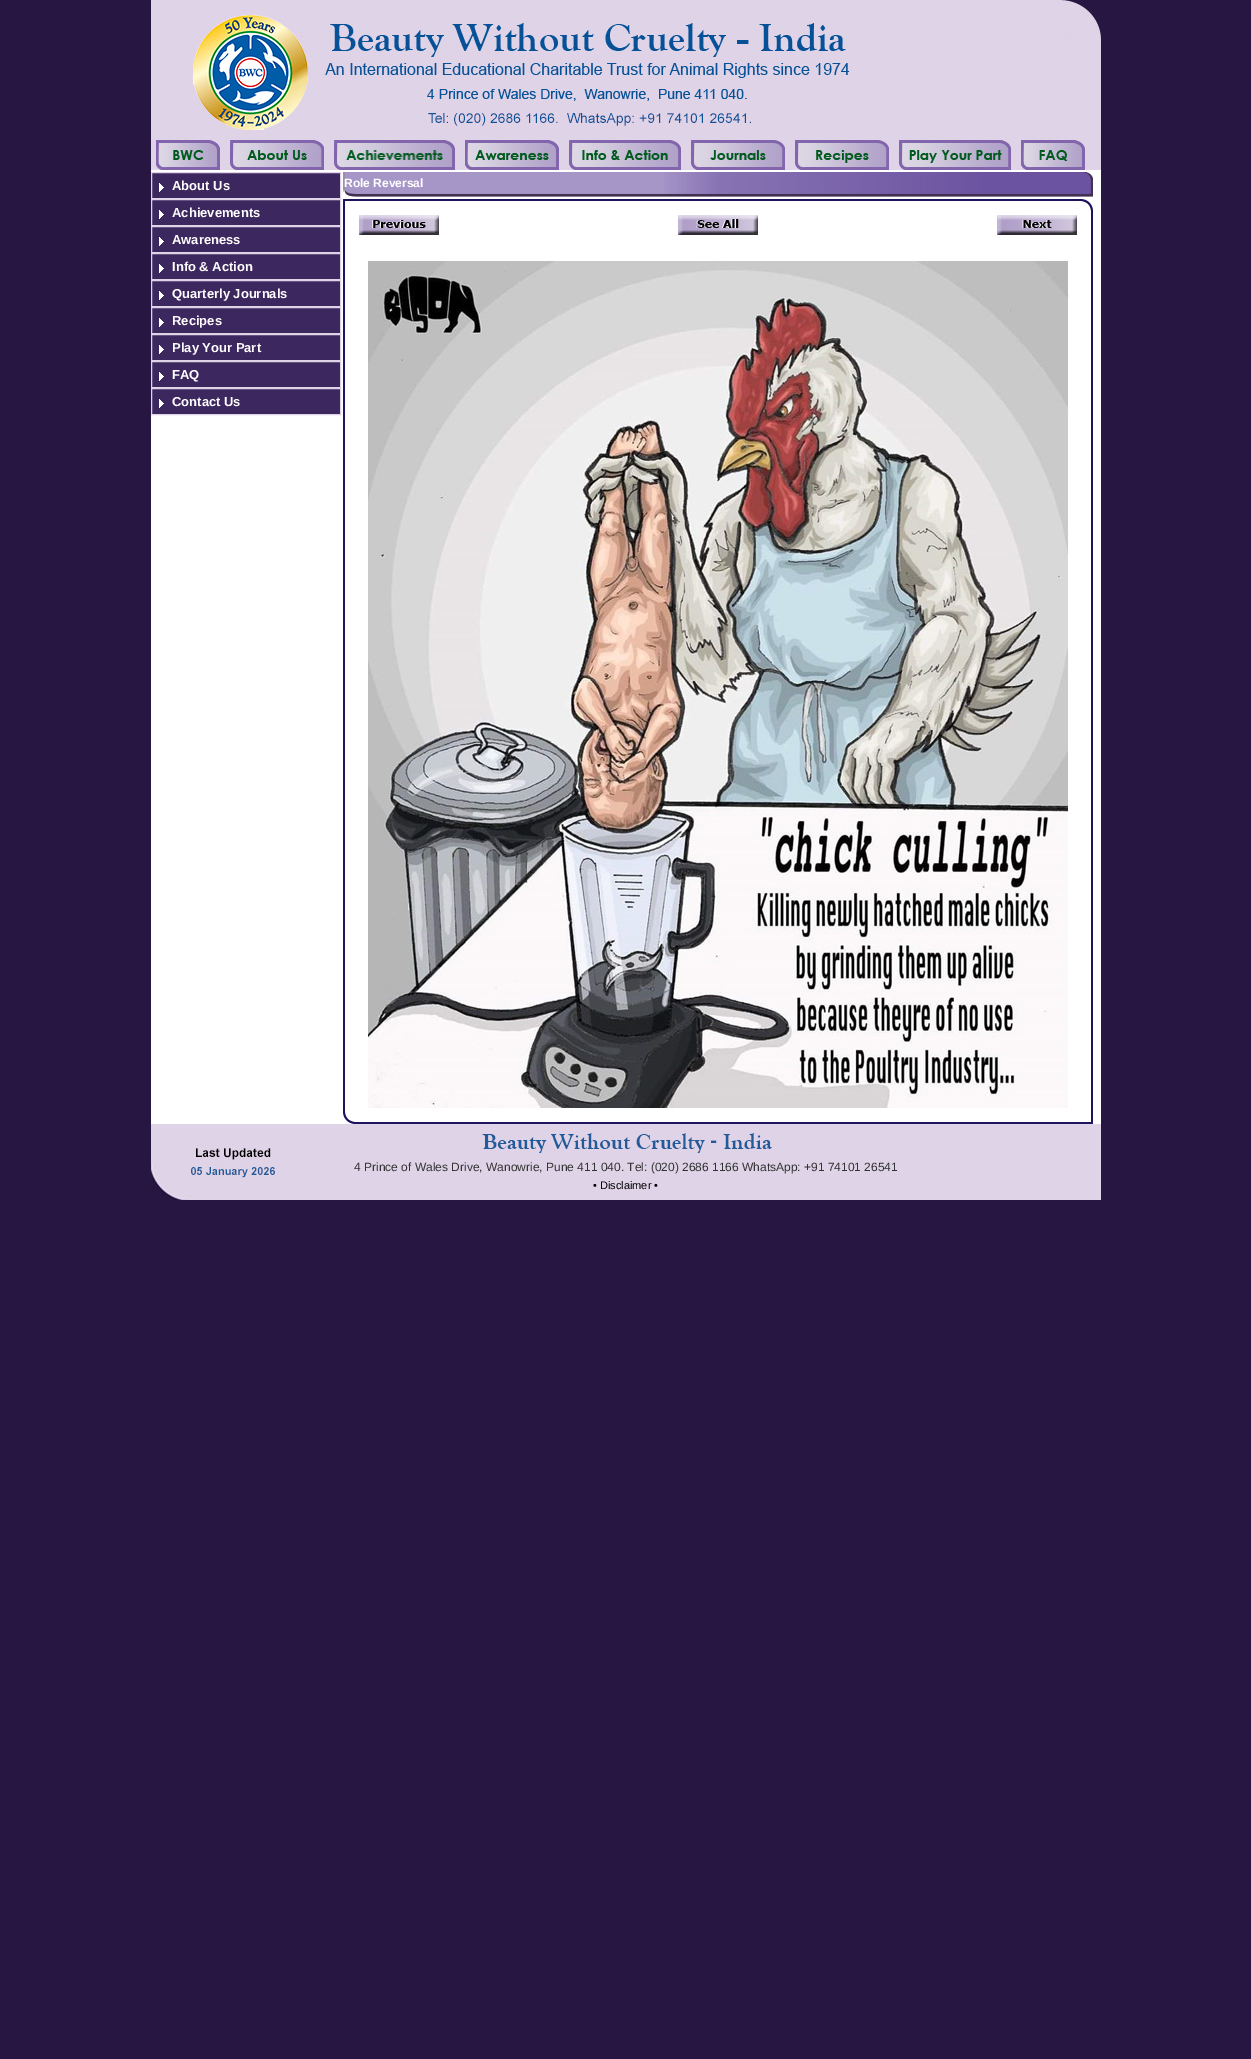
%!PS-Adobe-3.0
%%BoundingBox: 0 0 1251 2059
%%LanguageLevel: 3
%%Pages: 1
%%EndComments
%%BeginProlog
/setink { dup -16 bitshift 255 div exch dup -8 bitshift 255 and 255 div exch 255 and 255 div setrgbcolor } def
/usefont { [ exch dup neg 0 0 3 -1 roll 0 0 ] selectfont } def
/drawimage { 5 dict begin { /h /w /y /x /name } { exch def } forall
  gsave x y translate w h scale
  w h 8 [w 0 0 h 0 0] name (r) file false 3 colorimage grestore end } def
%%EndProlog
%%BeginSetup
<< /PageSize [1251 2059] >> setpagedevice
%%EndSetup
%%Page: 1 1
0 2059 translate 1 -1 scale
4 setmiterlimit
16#271641 setink
0 0 1251 2059 rectfill
(img1.raw) 151 0 950 140 drawimage
16#DFD3E7 setink
151 140 950 30 rectfill
(img2.raw) 156 140 64 30 drawimage
(img3.raw) 230 140 94 30 drawimage
(img4.raw) 334 140 121 30 drawimage
(img5.raw) 465 140 94 30 drawimage
(img6.raw) 569 140 112 30 drawimage
(img7.raw) 691 140 94 30 drawimage
(img8.raw) 795 140 94 30 drawimage
(img9.raw) 899 140 112 30 drawimage
(img10.raw) 1021 140 64 30 drawimage
16#FFFFFF setink
151 170 950 954 rectfill
16#3D275F setink
152 173 188 25 rectfill
(img11.raw) 159 183 5 9 drawimage
16#DFD3E7 setink
151.5 172.5 189 26 rectstroke
/LiberationSans-Bold 13 usefont
16#FFFFFF setink
172 190 moveto (About Us) show
16#3D275F setink
152 200 188 25 rectfill
(img11.raw) 159 210 5 9 drawimage
16#DFD3E7 setink
151.5 199.5 189 26 rectstroke
16#FFFFFF setink
172 217 moveto (Achievements) show
16#3D275F setink
152 227 188 25 rectfill
(img11.raw) 159 237 5 9 drawimage
16#DFD3E7 setink
151.5 226.5 189 26 rectstroke
16#FFFFFF setink
172 244 moveto (Awareness) show
16#3D275F setink
152 254 188 25 rectfill
(img11.raw) 159 264 5 9 drawimage
16#DFD3E7 setink
151.5 253.5 189 26 rectstroke
16#FFFFFF setink
172 271 moveto (Info & Action) show
16#3D275F setink
152 281 188 25 rectfill
(img11.raw) 159 291 5 9 drawimage
16#DFD3E7 setink
151.5 280.5 189 26 rectstroke
16#FFFFFF setink
172 298 moveto (Quarterly Journals) show
16#3D275F setink
152 308 188 25 rectfill
(img11.raw) 159 318 5 9 drawimage
16#DFD3E7 setink
151.5 307.5 189 26 rectstroke
16#FFFFFF setink
172 325 moveto (Recipes) show
16#3D275F setink
152 335 188 25 rectfill
(img11.raw) 159 345 5 9 drawimage
16#DFD3E7 setink
151.5 334.5 189 26 rectstroke
16#FFFFFF setink
172 352 moveto (Play Your Part) show
16#3D275F setink
152 362 188 25 rectfill
(img11.raw) 159 372 5 9 drawimage
16#DFD3E7 setink
151.5 361.5 189 26 rectstroke
16#FFFFFF setink
172 379 moveto (FAQ) show
16#3D275F setink
152 389 188 25 rectfill
(img11.raw) 159 399 5 9 drawimage
16#DFD3E7 setink
151.5 388.5 189 26 rectstroke
16#FFFFFF setink
172 406 moveto (Contact Us) show
(img12.raw) 343 172 750 25 drawimage
/LiberationSans-Bold 12 usefont
344 187 moveto (Role Reversal) show
(img13.raw) 343 199 16 16 drawimage
16#1F145F setink
359 199 718 2 rectfill
(img14.raw) 1077 199 16 16 drawimage
343 215 2 893 rectfill
(img15.raw) 359 215 80 20 drawimage
(img16.raw) 678 215 80 20 drawimage
(img17.raw) 997 215 80 20 drawimage
(img18.raw) 368 261 700 847 drawimage
1091 215 2 893 rectfill
(img19.raw) 343 1108 16 16 drawimage
359 1122 718 2 rectfill
(img20.raw) 1077 1108 16 16 drawimage
(img21.raw) 151 1124 950 76 drawimage
/LiberationSans-Regular 12 usefont
16#333333 setink
354 1171 moveto (4 Prince of Wales Drive, Wanowrie, Pune 411 040. Tel: \(020\) 2686 1166 WhatsApp: +91 74101 26541) show
/LiberationSans-Regular 11 usefont
16#000000 setink
593 1189 moveto (• Disclaimer •) show
showpage
%%EOF
